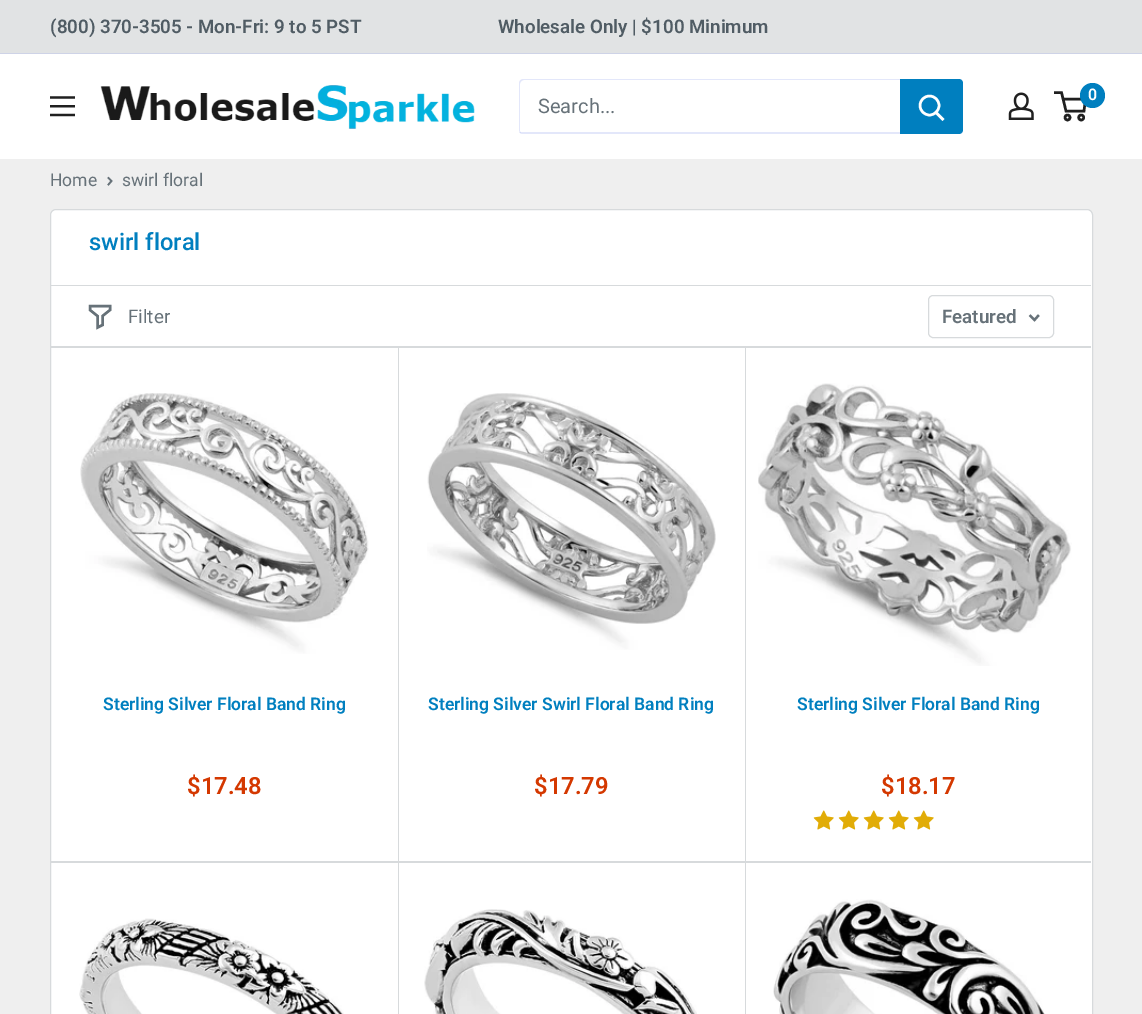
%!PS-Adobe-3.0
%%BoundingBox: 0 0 1142 1014
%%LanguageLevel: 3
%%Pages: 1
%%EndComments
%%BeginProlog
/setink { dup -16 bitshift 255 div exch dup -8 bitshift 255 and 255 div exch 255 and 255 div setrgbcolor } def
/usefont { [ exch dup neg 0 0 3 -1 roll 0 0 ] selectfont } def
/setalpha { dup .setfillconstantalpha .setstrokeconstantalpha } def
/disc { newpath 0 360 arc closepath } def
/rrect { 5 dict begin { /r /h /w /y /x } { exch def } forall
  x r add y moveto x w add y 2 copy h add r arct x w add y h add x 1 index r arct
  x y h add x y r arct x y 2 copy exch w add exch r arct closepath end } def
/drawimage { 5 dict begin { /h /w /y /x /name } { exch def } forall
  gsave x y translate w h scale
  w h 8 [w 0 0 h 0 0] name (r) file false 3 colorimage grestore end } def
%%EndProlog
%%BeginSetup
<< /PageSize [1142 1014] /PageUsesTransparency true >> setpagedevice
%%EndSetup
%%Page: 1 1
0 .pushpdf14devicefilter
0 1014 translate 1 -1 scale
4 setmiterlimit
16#EFEFEF setink
0 0 1142 1014 rectfill
16#E1E3E4 setink
0 0 1142 53 rectfill
16#CED3E7 setink
0 53 1142 1 rectfill
/Roboto-SemiBold 18.75 usefont
16#505C64 setink
50 33 moveto (\(800\) 370-3505 - Mon-Fri: 9 to 5 PST) show
498 33 moveto (Wholesale Only | $100 Minimum) show
16#FFFFFF setink
0 54 1142 105 rectfill
(img1.raw) 100 85 375 44 drawimage
(img2.raw) 1008 92 26 28 drawimage
16#202020 setink
2.5 setlinewidth
1067.5 117.5 2.5 disc stroke
1081.2 117.5 2.5 disc stroke
1063 99 moveto 1085.5 99 lineto 1084 111 lineto 1066 111 lineto 1061.5 92.5 lineto 1054 92.5 lineto stroke
16#007FBF setink
1092.5 95.5 12.5 disc fill
/Roboto-SemiBold 16 usefont
16#FFFFFF setink
1088 100 moveto (0) show
(img3.raw) 50 96 25 21 drawimage
16#E3E7FA setink
519 132 moveto 520 133 521 134 523 134 curveto 959 134 lineto 961 134 962 133 963 132 curveto 963 82 lineto 961 79 lineto 961 121 lineto 961 123 963 132 958 132 curveto closepath fill
0.3 setalpha
16#A3AFEF setink
524 80 moveto 960 80 lineto 962 81 lineto 962 80 960 79 959 79 curveto 523 79 lineto 521 79 519 81 519 83 curveto 519 130 lineto 519 131 520 133 521 133 curveto 520 131 lineto 520 84 lineto 520 82 522 80 524 80 curveto closepath fill
/Roboto-Regular 20 usefont
1 setalpha
16#677279 setink
538 113 moveto (Search...) show
16#007FBF setink
900 79 moveto 959 79 lineto 961 79 963 81 963 83 curveto 963 130 lineto 963 132 961 134 959 134 curveto 900 134 lineto closepath fill
16#FFFFFF setink
2 setlinecap
942.5 119 moveto 936 112.5 lineto stroke
0 setlinecap
929.5 105.5 9.5 disc stroke
/Roboto-Regular 17.5 usefont
16#677279 setink
50 186 moveto (Home) show
1.7 setlinewidth
2 setlinecap
108.5 178 moveto 111.5 181 lineto 108.5 184.5 lineto stroke
122 186 moveto (swirl floral) show
16#FFFFFF setink
50.5 209.5 1042 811 5.5 rrect gsave fill grestore
16#D7DADC setink
1 setlinewidth
0 setlinecap
stroke
/Roboto-Medium 23.75 usefont
16#007FBF setink
89 250 moveto (swirl floral) show
16#D7DADC setink
51 285 moveto 51 345 lineto 51 286 lineto 1091 286 lineto 1091 285 lineto closepath fill
55 346 moveto 399 346 lineto 399 861 lineto 398 861 lineto 398 346 lineto 54 346 lineto closepath fill
399 346 moveto 746 346 lineto 746 861 lineto 745 861 lineto 745 346 lineto closepath fill
51 288 moveto 51 348 lineto 1091 348 lineto 1091 346 lineto 51 346 lineto closepath fill
16#677279 setink
2.5 setlinewidth
2 setlinecap
110 310 moveto 102.5 316 lineto 102.5 325 lineto 97.5 327.5 lineto 97.5 316 lineto 90 310 lineto 90 306 lineto 110 306 lineto closepath stroke
/Roboto-Regular 18.75 usefont
128 323 moveto (Filter) show
16#D7DADC setink
1 setlinewidth
0 setlinecap
928.5 295.5 125 42 4.5 rrect stroke
/Roboto-SemiBold 18.75 usefont
16#677279 setink
942 323 moveto (Featured) show
2.3 setlinewidth
2 setlinecap
1038 316 moveto 1034.5 320 lineto 1030.5 316 lineto stroke
16#D7DADC setink
51 350 moveto 51 863 lineto 398 863 lineto 398 348 lineto 398 861 lineto 51 861 lineto 51 349 lineto closepath fill
(img4.raw) 80 393 289 261 drawimage
/Roboto-SemiBold 17.5 usefont
16#007FBF setink
103 710 moveto (Sterling Silver Floral Band Ring) show
/Roboto-SemiBold 23.75 usefont
16#D43800 setink
187 794 moveto ($17.48) show
16#D7DADC setink
398 861 693 2 rectfill
(img5.raw) 427 393 289 257 drawimage
/Roboto-SemiBold 17.5 usefont
16#007FBF setink
428 710 moveto (Sterling Silver Swirl Floral Band Ring) show
/Roboto-SemiBold 23.75 usefont
16#D43800 setink
534 794 moveto ($17.79) show
(img6.raw) 758 383 314 283 drawimage
/Roboto-SemiBold 17.5 usefont
16#007FBF setink
797 710 moveto (Sterling Silver Floral Band Ring) show
/Roboto-SemiBold 23.75 usefont
16#D43800 setink
881 794 moveto ($18.17) show
(img7.raw) 813 810 21 20 drawimage
(img7.raw) 838 810 21 20 drawimage
(img7.raw) 863 810 21 20 drawimage
(img7.raw) 888 810 21 20 drawimage
(img7.raw) 913 810 21 20 drawimage
(img8.raw) 79 918 265 96 drawimage
16#D7DADC setink
53 861 moveto 399 861 lineto 399 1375 lineto 398 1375 lineto 398 861 lineto closepath fill
(img9.raw) 424 909 273 105 drawimage
399 861 moveto 746 861 lineto 746 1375 lineto 745 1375 lineto 745 861 lineto closepath fill
(img10.raw) 773 899 272 115 drawimage
.poppdf14devicefilter showpage
%%EOF
